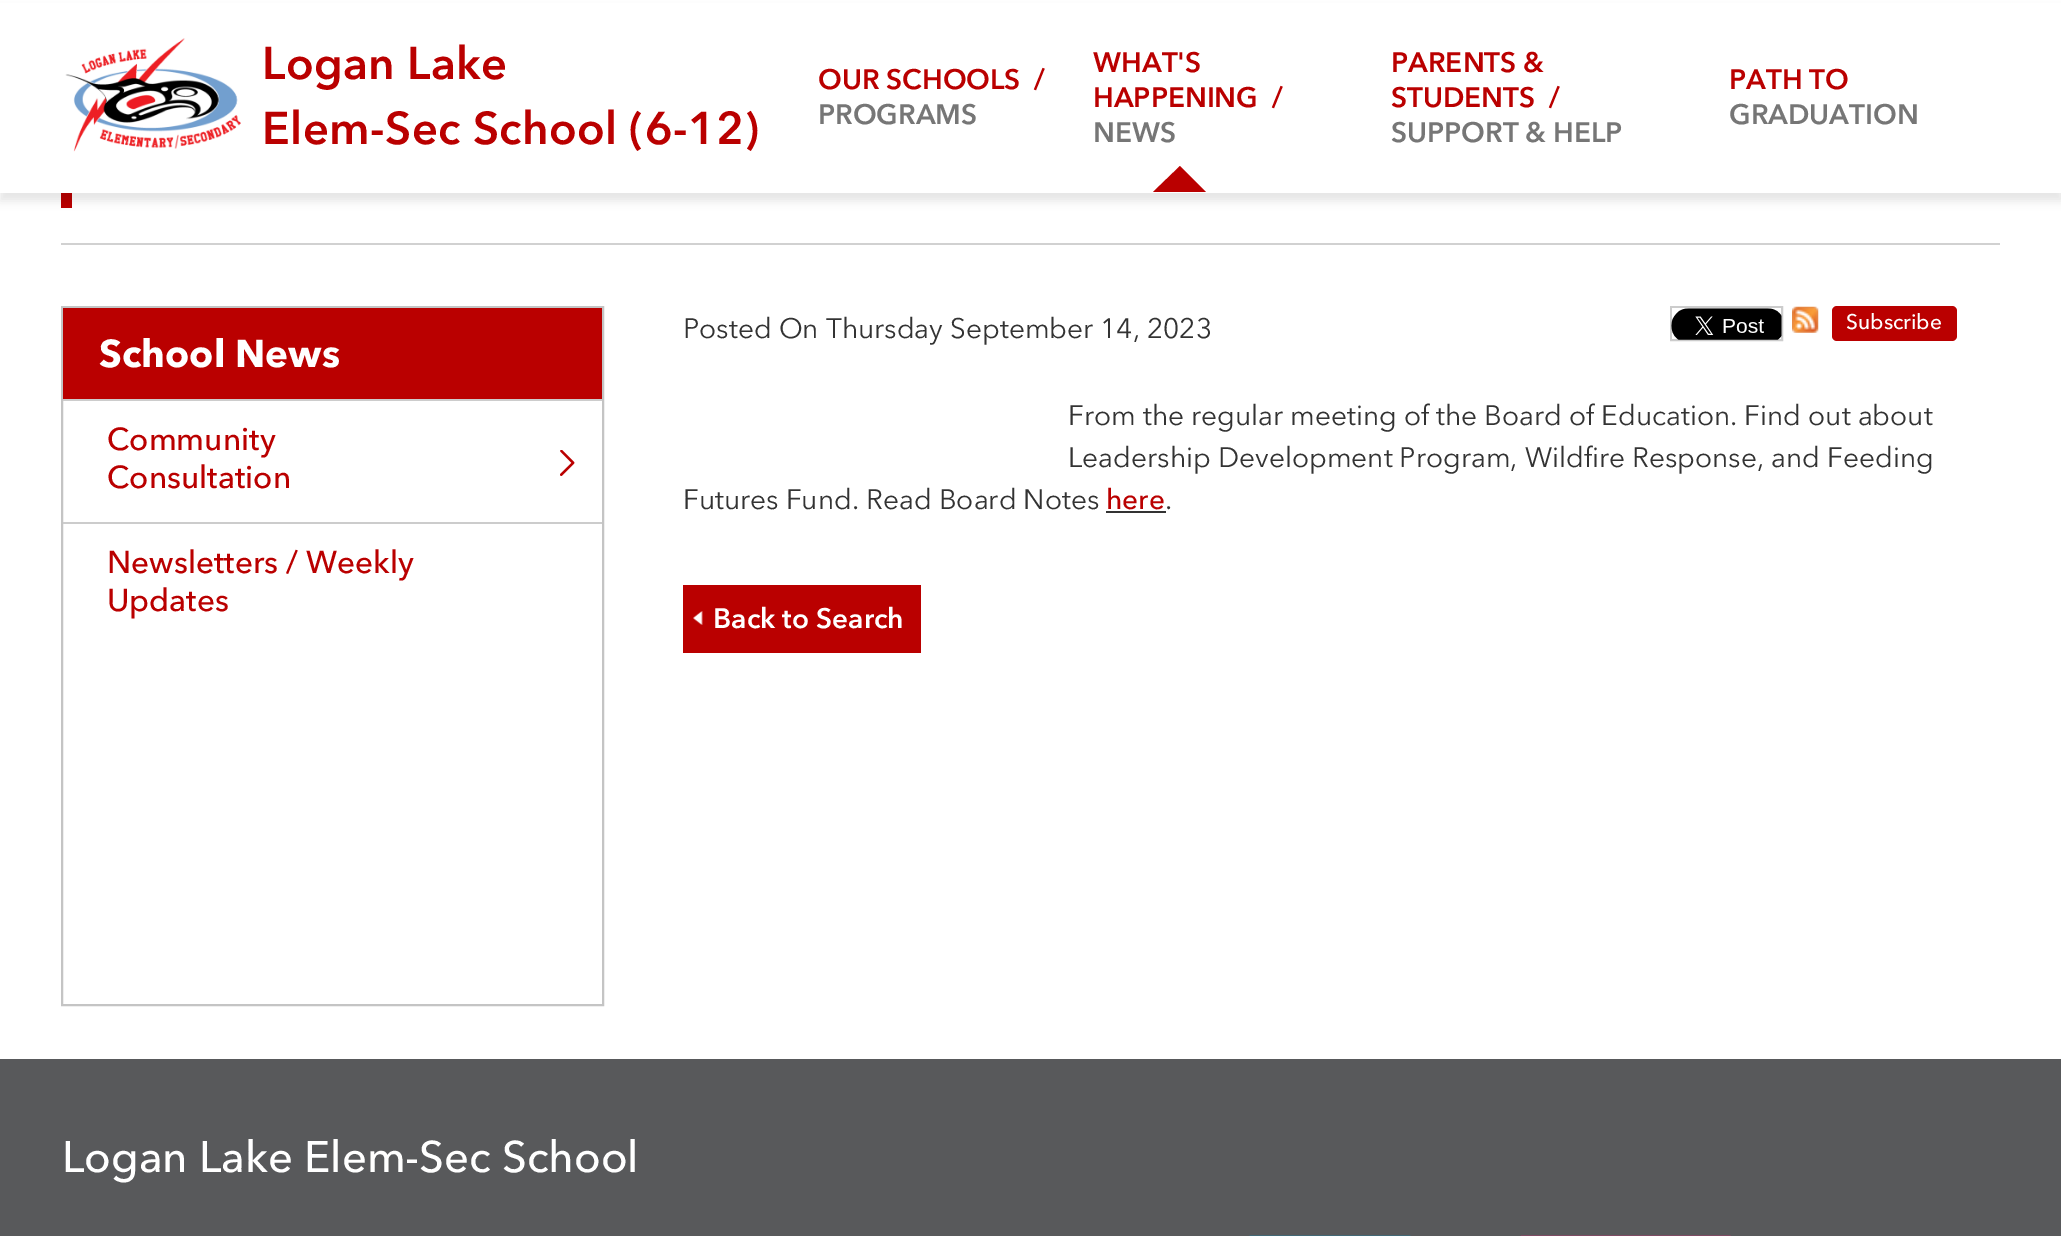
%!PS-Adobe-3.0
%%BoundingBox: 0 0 2061 1236
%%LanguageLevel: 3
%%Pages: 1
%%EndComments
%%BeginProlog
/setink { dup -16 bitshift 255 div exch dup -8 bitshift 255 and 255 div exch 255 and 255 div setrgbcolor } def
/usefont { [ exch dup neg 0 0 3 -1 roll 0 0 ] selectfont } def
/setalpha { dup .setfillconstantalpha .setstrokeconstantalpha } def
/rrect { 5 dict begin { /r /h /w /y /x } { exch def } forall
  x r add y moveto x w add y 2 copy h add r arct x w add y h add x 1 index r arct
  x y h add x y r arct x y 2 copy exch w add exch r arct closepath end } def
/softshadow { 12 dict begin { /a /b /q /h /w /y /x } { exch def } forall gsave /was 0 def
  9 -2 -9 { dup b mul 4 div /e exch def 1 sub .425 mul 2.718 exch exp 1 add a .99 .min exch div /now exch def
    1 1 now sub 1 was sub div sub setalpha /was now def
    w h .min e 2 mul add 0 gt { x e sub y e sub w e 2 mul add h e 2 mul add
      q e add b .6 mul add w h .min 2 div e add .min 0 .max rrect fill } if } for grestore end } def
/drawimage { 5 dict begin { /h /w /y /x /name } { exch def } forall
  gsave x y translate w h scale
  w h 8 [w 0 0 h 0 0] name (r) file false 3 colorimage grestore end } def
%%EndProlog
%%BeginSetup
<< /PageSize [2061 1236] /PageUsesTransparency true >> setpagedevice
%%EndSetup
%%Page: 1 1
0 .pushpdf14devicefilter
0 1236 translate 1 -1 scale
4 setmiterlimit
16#FFFFFF setink
0 0 2061 1236 rectfill
16#BA0000 setink
61 193 11 15 rectfill
16#000000 setink
0 9 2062 192 0 4.5 0.1 softshadow
16#FFFFFF setink
0 3 2061 190 rectfill
(img1.raw) 65 38 176 114 drawimage
/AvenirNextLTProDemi-Regular 45.5 usefont
16#BA0000 setink
262 79 moveto 0.4 0 (Logan Lake) ashow
262 144 moveto 0.4 0 (Elem-Sec School \(6-12\)) ashow
/AvenirNextLTProDemi-Regular 28 usefont
818 89 moveto (OUR SCHOOLS) show
1034 89 moveto (/) show
16#767676 setink
818 124 moveto (PROGRAMS) show
16#BA0000 setink
[
    [(WHAT'S) 1093 72]
    [(HAPPENING) 1093 107]
    [(/) 1272 107]
] { aload pop moveto show } forall
16#767676 setink
1093 142 moveto (NEWS) show
16#BA0000 setink
1206 192 moveto 1153 192 lineto 1180 166 lineto closepath fill
[
    [(PARENTS &) 1391 72]
    [(STUDENTS) 1391 107]
    [(/) 1549 107]
] { aload pop moveto show } forall
16#767676 setink
1391 142 moveto (SUPPORT & HELP) show
16#BA0000 setink
1729 89 moveto (PATH TO) show
16#767676 setink
1729 124 moveto (GRADUATION) show
16#D1D1D1 setink
61 243 1939 2 rectfill
16#C4C4C4 setink
2 setlinewidth
62 307 541 698 rectstroke
16#BA0000 setink
63 308 539 91 rectfill
/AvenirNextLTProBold-Regular 38.5 usefont
16#FFFFFF setink
99 367 moveto (School News) show
16#CCCCCC setink
63 399 539 2 rectfill
/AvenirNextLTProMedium-Regular 31.5 usefont
16#BA0000 setink
107 450 moveto (Community) show
107 488 moveto (Consultation) show
(img2.raw) 560 450 15 26 drawimage
16#CCCCCC setink
63 522 539 2 rectfill
16#BA0000 setink
107 573 moveto (Newsletters / Weekly) show
107 611 moveto (Updates) show
/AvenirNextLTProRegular-Regular 28 usefont
16#333333 setink
683 338 moveto (Posted On Thursday September 14, 2023) show
16#CCCCCC setink
1671 307 111 33 rectstroke
(img3.raw) 1671 308 111 32 drawimage
(img4.raw) 1792 306 27 27 drawimage
16#BA0000 setink
1832 306 125 35 5 rrect fill
/AvenirNextLTProMedium-Regular 21 usefont
16#FFFFFF setink
1846 329 moveto (Subscribe) show
/AvenirNextLTProRegular-Regular 28 usefont
16#333333 setink
[
    [(From the regular meeting of the Board of Education. Find out about) 1068 425]
    [(Leadership Development Program, Wildfire Response, and Feeding) 1068 467]
    [(Futures Fund. Read Board Notes) 683 509]
] { aload pop moveto show } forall
/AvenirNextLTProMedium-Regular 28 usefont
16#BA0000 setink
1106 509 moveto (here) show
16#333333 setink
1106 511 60 2 rectfill
/AvenirNextLTProRegular-Regular 28 usefont
1165 509 moveto (.) show
16#BA0000 setink
683 585 238 68 rectfill
(img5.raw) 693 611 10 14 drawimage
/AvenirNextLTProDemi-Regular 28 usefont
16#FFFFFF setink
713 628 moveto (Back to Search) show
16#58595B setink
0 1059 2061 177 rectfill
/AvenirNextLTProMedium-Regular 43.75 usefont
16#FFFFFF setink
62 1172 moveto (Logan Lake Elem-Sec School) show
(img6.raw) 1249 1235 162 1 drawimage
(img7.raw) 1520 1235 211 1 drawimage
.poppdf14devicefilter showpage
%%EOF
